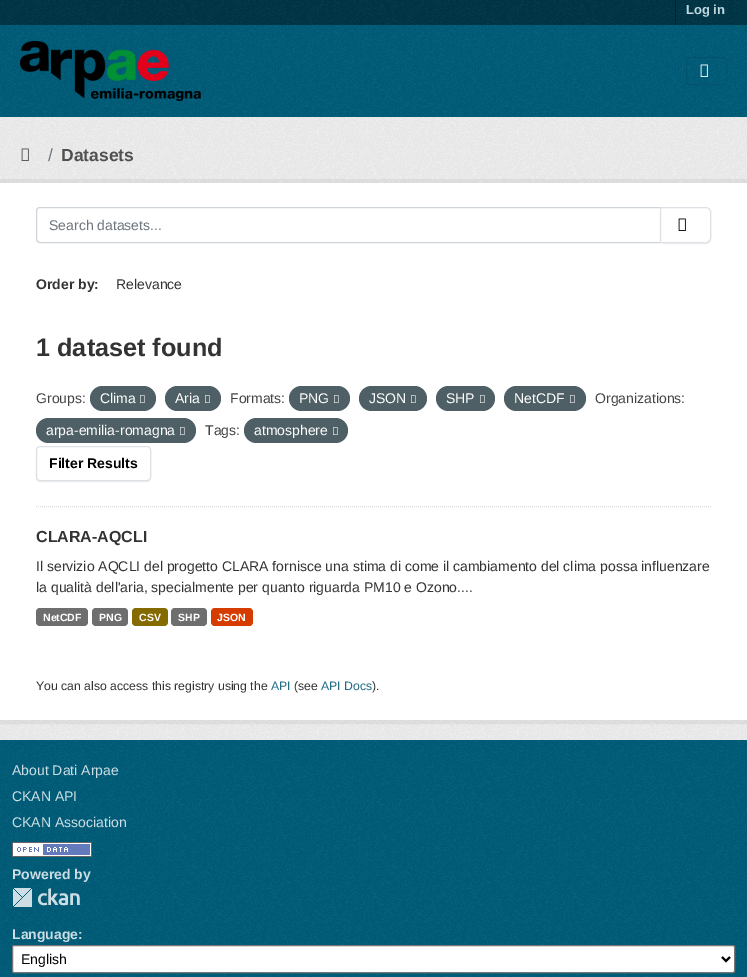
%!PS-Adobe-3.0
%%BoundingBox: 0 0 747 977
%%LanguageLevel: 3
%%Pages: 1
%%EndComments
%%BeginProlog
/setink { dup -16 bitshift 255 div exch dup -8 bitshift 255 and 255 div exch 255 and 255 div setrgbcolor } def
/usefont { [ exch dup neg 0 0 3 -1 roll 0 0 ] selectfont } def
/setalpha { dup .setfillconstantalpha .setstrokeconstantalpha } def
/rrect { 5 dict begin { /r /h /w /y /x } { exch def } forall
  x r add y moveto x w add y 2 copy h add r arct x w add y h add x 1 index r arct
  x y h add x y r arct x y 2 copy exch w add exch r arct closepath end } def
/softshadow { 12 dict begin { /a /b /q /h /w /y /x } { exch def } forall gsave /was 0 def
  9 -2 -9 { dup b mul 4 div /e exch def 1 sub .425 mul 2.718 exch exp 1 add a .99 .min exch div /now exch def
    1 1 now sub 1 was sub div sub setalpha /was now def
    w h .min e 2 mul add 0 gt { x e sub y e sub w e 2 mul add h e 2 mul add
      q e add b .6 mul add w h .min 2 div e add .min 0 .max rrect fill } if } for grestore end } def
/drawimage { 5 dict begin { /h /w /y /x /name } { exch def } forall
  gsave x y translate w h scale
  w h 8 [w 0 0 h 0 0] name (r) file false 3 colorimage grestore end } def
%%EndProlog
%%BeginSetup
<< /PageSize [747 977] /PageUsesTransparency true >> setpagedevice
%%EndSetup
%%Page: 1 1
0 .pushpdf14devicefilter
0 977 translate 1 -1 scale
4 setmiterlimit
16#003647 setink
0 0 747 977 rectfill
(img1.raw) 0 0 747 25 drawimage
16#00232E setink
675 0 1 25 rectfill
/LiberationSans-Bold 13 usefont
16#BFD7DE setink
686 14 moveto (Log in) show
16#005D7A setink
0 25 747 92 rectfill
(img2.raw) 0 25 747 92 drawimage
(img3.raw) 20 41 181 60 drawimage
0.1 setalpha
16#000000 setink
686.5 57.5 40 27 3.5 rrect stroke
1 setalpha
(img4.raw) 700 64 8 13 drawimage
16#EEEEEE setink
0 117 747 623 rectfill
(img5.raw) 0 117 747 623 drawimage
(img6.raw) 21 148 8 13 drawimage
/LiberationSans-Regular 17.5 usefont
16#6C757D setink
48 161 moveto (/) show
/LiberationSans-Bold 17.5 usefont
16#505050 setink
61 161 moveto (Datasets) show
0.05 setalpha
16#000000 setink
4 setlinewidth
-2 181 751 541 rectstroke
1 setalpha
16#FFFFFF setink
0 183 747 537 rectfill
16#DDDDDD setink
1 setlinewidth
[1 1] 0 setdash
36 506.5 moveto 711 506.5 lineto stroke
16#CED4DA setink
[] 0 setdash
40 207.5 moveto 660.5 207.5 lineto 660.5 242.5 lineto 40 242.5 lineto 38 242.5 36.5 241 36.5 239 curveto 36.5 211 lineto 36.5 209 38 207.5 40 207.5 curveto closepath stroke
/LiberationSans-Regular 14 usefont
16#6C757D setink
49 230 moveto (Search datasets...) show
16#000000 setink
660 208 51 36 5 0.5 0.07 softshadow
16#FFFFFF setink
660.5 207.5 moveto 706 207.5 lineto 708.5 207.5 710.5 209.5 710.5 212 curveto 710.5 238 lineto 710.5 240.5 708.5 242.5 706 242.5 curveto 660.5 242.5 lineto closepath gsave fill grestore
16#DEE2E6 setink
stroke
(img7.raw) 678 218 8 13 drawimage
/LiberationSans-Bold 14 usefont
16#333333 setink
36 289 moveto (Order by:) show
/LiberationSans-Regular 14 usefont
116 289 moveto (Relevance) show
/LiberationSans-Bold 25.25 usefont
36 356 moveto (1 dataset found) show
/LiberationSans-Regular 14 usefont
16#444444 setink
36 403 moveto (Groups:) show
16#4E5F65 setink
90 386 66 25 12.5 rrect fill
16#FFFFFF setink
100 403 moveto (Clima) show
(img8.raw) 140 395 5 8 drawimage
16#4E5F65 setink
165 386 56 25 12.5 rrect fill
16#FFFFFF setink
175 403 moveto (Aria) show
(img8.raw) 205 395 5 8 drawimage
16#444444 setink
230 403 moveto (Formats:) show
16#4E5F65 setink
289 386 61 25 12.5 rrect fill
16#FFFFFF setink
299 403 moveto (PNG) show
(img8.raw) 334 395 5 8 drawimage
16#4E5F65 setink
359 386 68 25 12.5 rrect fill
16#FFFFFF setink
369 403 moveto (JSON) show
(img8.raw) 411 395 5 8 drawimage
16#4E5F65 setink
436 386 59 25 12.5 rrect fill
16#FFFFFF setink
446 403 moveto (SHP) show
(img8.raw) 480 395 5 8 drawimage
16#4E5F65 setink
504 386 82 25 12.5 rrect fill
16#FFFFFF setink
514 403 moveto (NetCDF) show
(img8.raw) 570 395 5 8 drawimage
16#444444 setink
595 403 moveto (Organizations:) show
16#4E5F65 setink
36 418 160 25 12.5 rrect fill
16#FFFFFF setink
46 435 moveto (arpa-emilia-romagna) show
(img8.raw) 180 427 5 8 drawimage
16#444444 setink
205 435 moveto (Tags:) show
16#4E5F65 setink
244 418 104 25 12.5 rrect fill
16#FFFFFF setink
254 435 moveto (atmosphere) show
(img8.raw) 333 427 5 8 drawimage
16#000000 setink
36 447 115 35 4 0.5 0.07 softshadow
16#FFFFFF setink
36.5 446.5 114 34 3.5 rrect gsave fill grestore
16#DEE2E6 setink
stroke
/LiberationSans-Bold 14 usefont
16#000000 setink
49 468 moveto (Filter Results) show
/LiberationSans-Bold 16 usefont
16#333333 setink
36 542 moveto (CLARA-AQCLI) show
/LiberationSans-Regular 14 usefont
36 571 moveto (Il servizio AQCLI del progetto CLARA fornisce una stima di come il cambiamento del clima possa influenzare) show
36 592 moveto (la qualità dell'aria, specialmente per quanto riguarda PM10 e Ozono....) show
16#6E6E6E setink
36 608 52 18 4 rrect fill
/LiberationSans-Bold 10.5 usefont
16#FFFFFF setink
43 621 moveto (NetCDF) show
16#6E6E6E setink
92 608 36 18 4 rrect fill
16#FFFFFF setink
99 621 moveto (PNG) show
16#856A00 setink
132 608 36 18 4 rrect fill
16#FFFFFF setink
139 621 moveto (CSV) show
16#6E6E6E setink
171 608 36 18 4 rrect fill
16#FFFFFF setink
178 621 moveto (SHP) show
16#D63B00 setink
211 608 42 18 4 rrect fill
16#FFFFFF setink
217 621 moveto (JSON) show
/LiberationSans-Regular 12.25 usefont
16#333333 setink
36 690 moveto (You can also access this registry using the) show
16#206B82 setink
271 690 moveto (API) show
16#333333 setink
294 690 moveto (\(see) show
16#206B82 setink
321 690 moveto (API Docs) show
16#333333 setink
372 690 moveto (\).) show
16#005D7A setink
0 740 747 237 rectfill
(img9.raw) 0 740 747 237 drawimage
/LiberationSans-Regular 14 usefont
16#CCDEE3 setink
[
    [(About Dati Arpae) 12 775]
    [(CKAN API) 12 801]
    [(CKAN Association) 12 827]
] { aload pop moveto show } forall
(img10.raw) 12 842 80 15 drawimage
/LiberationSans-Bold 14 usefont
12 879 moveto (Powered by) show
(img11.raw) 13 888 67 19 drawimage
12 939 moveto (Language:) show
16#FFFFFF setink
12.5 945.5 722 27 1.5 rrect gsave fill grestore
16#767676 setink
stroke
16#000000 setink
2 setlinewidth
722 957 moveto 726 961 lineto 730 957 lineto stroke
/LiberationSans-Regular 14 usefont
21 964 moveto (English) show
.poppdf14devicefilter showpage
%%EOF
